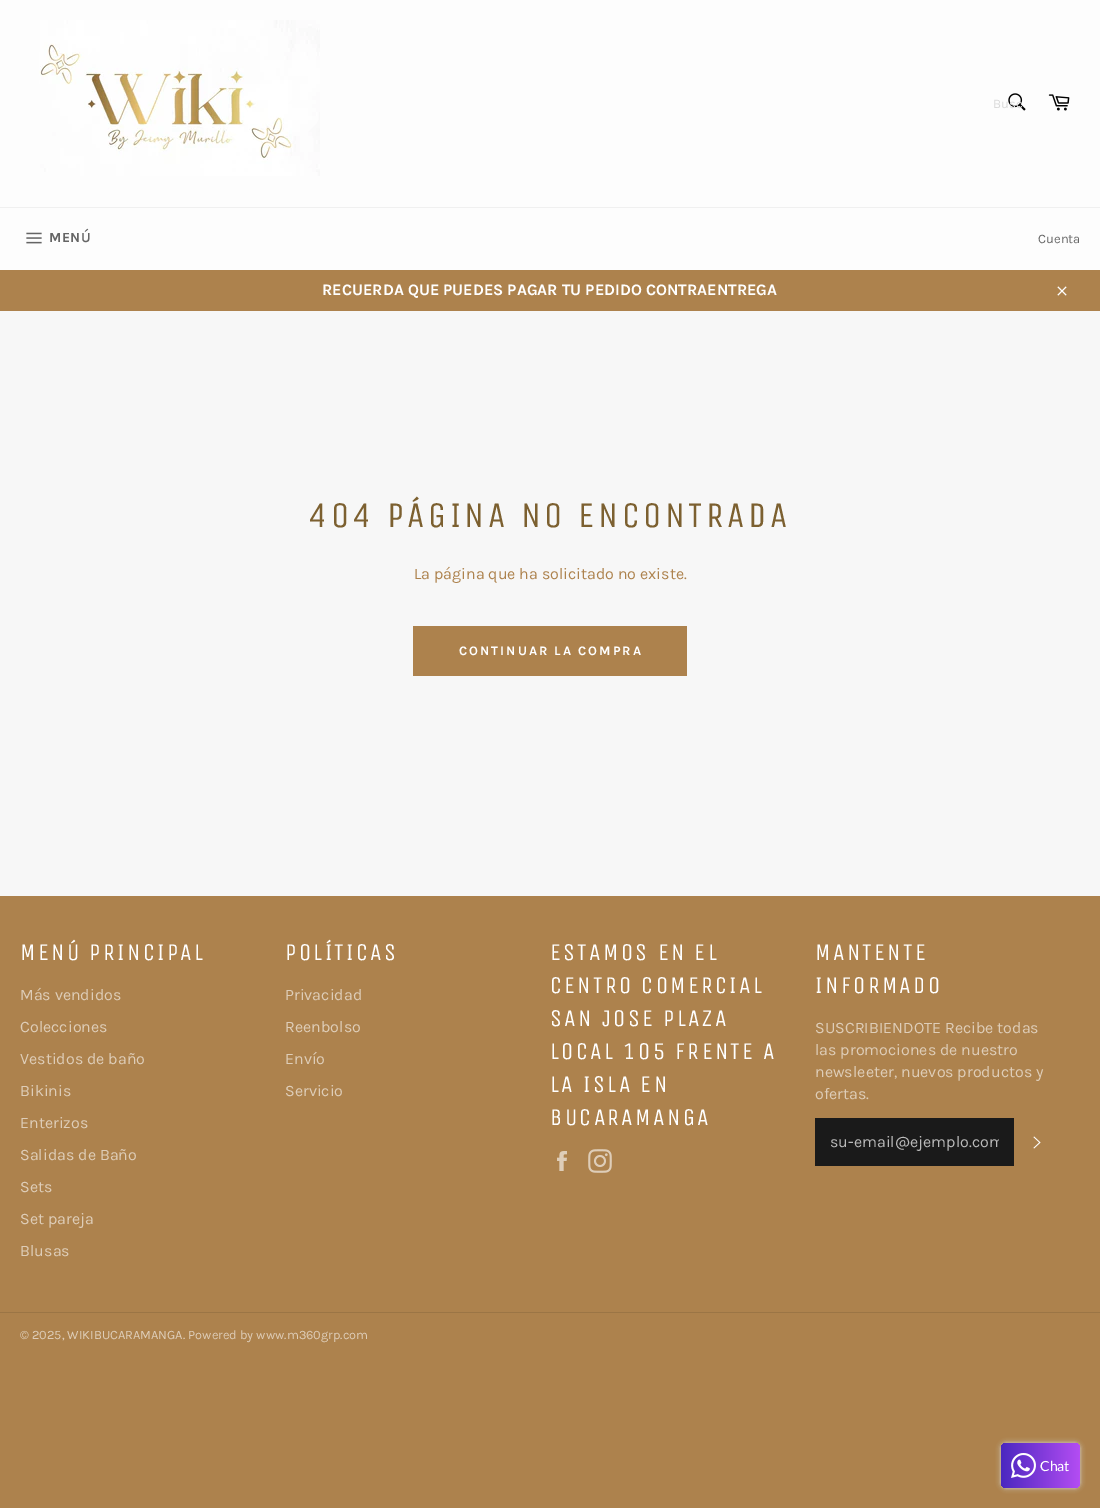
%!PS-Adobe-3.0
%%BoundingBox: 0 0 1100 1508
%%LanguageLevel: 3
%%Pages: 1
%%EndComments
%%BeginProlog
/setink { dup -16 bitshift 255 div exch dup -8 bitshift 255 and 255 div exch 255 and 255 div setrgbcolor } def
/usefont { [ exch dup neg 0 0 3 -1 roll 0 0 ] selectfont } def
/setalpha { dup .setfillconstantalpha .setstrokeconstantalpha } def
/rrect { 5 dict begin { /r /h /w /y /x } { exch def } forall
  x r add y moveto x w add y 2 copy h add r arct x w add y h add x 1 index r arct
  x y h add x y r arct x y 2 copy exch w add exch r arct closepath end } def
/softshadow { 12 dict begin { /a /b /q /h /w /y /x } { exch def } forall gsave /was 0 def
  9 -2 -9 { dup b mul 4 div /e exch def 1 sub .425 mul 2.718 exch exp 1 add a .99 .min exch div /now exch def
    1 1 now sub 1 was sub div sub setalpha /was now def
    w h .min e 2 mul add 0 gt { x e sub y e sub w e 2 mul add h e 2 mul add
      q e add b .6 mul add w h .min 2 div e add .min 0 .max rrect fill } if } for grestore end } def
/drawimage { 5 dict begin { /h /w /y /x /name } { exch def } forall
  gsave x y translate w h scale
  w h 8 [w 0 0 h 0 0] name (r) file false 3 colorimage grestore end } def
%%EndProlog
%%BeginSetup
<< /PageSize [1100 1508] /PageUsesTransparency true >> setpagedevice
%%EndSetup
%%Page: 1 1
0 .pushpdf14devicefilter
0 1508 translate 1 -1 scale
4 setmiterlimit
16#AD824D setink
0 0 1100 1508 rectfill
16#F7F7F7 setink
0 311 1100 585 rectfill
16#FDFDFD setink
0 0 1100 207 rectfill
(img1.raw) 39 20 281 156 drawimage
(img2.raw) 1008 93 18 18 drawimage
/Karla-Regular 13 usefont
16#DADADA setink
993 108 moveto (Busc) show
(img3.raw) 1048 94 22 17 drawimage
16#FDFDFD setink
0 208 1100 62 rectfill
16#F0F0F0 setink
0 207 1100 1 rectfill
(img4.raw) 26 232 16 12 drawimage
/Karla-Bold 14 usefont
16#656565 setink
49 242 moveto 0.5 0 (MENÚ) ashow
/Karla-Regular 13 usefont
1038 243 moveto (Cuenta) show
/Karla-Bold 16 usefont
16#FFFFFF setink
322 295 moveto (RECUERDA QUE PUEDES PAGAR TU PEDIDO CONTRAENTREGA) show
(img5.raw) 1057 286 10 10 drawimage
/UnicaOne-Regular 36 usefont
16#7C6030 setink
309 527 moveto 3.6 0 (404 PÁGINA NO ENCONTRADA) ashow
/Karla-Regular 16 usefont
16#AD824D setink
414 579 moveto (La página que ha solicitado no existe.) show
413 626 274 50 rectfill
/Karla-Bold 13 usefont
16#FFFFFF setink
459 655 moveto 2 0 (CONTINUAR LA COMPRA) ashow
/UnicaOne-Regular 24 usefont
20 960 moveto 2.4 0 (MENÚ PRINCIPAL) ashow
/Karla-Regular 16 usefont
16#DECDB8 setink
[
    [(Más vendidos) 20 1000]
    [(Colecciones) 20 1032]
    [(Vestidos de baño) 20 1064]
    [(Bikinis) 20 1096]
    [(Enterizos) 20 1128]
    [(Salidas de Baño) 20 1160]
    [(Sets) 20 1192]
    [(Set pareja) 20 1224]
    [(Blusas) 20 1256]
] { aload pop moveto show } forall
/UnicaOne-Regular 24 usefont
16#FFFFFF setink
285 960 moveto 2.4 0 (POLÍTICAS) ashow
/Karla-Regular 16 usefont
16#DECDB8 setink
[
    [(Privacidad) 285 1000]
    [(Reenbolso) 285 1032]
    [(Envío) 285 1064]
    [(Servicio) 285 1096]
] { aload pop moveto show } forall
/UnicaOne-Regular 24 usefont
16#FFFFFF setink
550 960 moveto 2.4 0 (ESTAMOS EN EL) ashow
550 993 moveto 2.4 0 (CENTRO COMERCIAL) ashow
550 1026 moveto 2.4 0 (SAN JOSE PLAZA) ashow
550 1059 moveto 2.4 0 (LOCAL 105 FRENTE A) ashow
550 1092 moveto 2.4 0 (LA ISLA EN) ashow
550 1125 moveto 2.4 0 (BUCARAMANGA) ashow
(img6.raw) 557 1151 10 20 drawimage
(img7.raw) 588 1149 24 24 drawimage
815 960 moveto 2.4 0 (MANTENTE) ashow
815 993 moveto 2.4 0 (INFORMADO) ashow
/Karla-Regular 16 usefont
16#DECDB8 setink
[
    [(SUSCRIBIENDOTE Recibe todas) 815 1033]
    [(las promociones de nuestro) 815 1055]
    [(newsleeter, nuevos productos y) 815 1077]
    [(ofertas.) 815 1099]
] { aload pop moveto show } forall
16#1A1A1A setink
815 1118 199 48 rectfill
gsave
830 1132 169 19 rectclip
16#BABABA setink
830 1147 moveto (su-email@ejemplo.com) show
grestore
(img8.raw) 1033 1136 8 13 drawimage
16#9B7545 setink
0 1312 1100 1 rectfill
/Karla-Regular 12.8 usefont
16#DECDB8 setink
20 1339 moveto (© 2025, WIKIBUCARAMANGA. Powered by www.m360grp.com) show
16#D3D3D3 setink
1001 1443 79 45 5 2.5 1 softshadow
gsave 1001 1443 79 45 5 rrect clip newpath
<< /ShadingType 2 /ColorSpace /DeviceRGB /Coords [1001 1466 1080 1466] /Extend [true true] /Function << /FunctionType 2 /Domain [0 1] /C0 [0.29 0.153 0.753] /C1 [0.706 0.302 0.953] /N 1 >> >> shfill grestore
(img9.raw) 1011 1453 25 25 drawimage
/Lato-Regular 14 usefont
16#FFFFFF setink
1040 1471 moveto (Chat) show
.poppdf14devicefilter showpage
%%EOF
